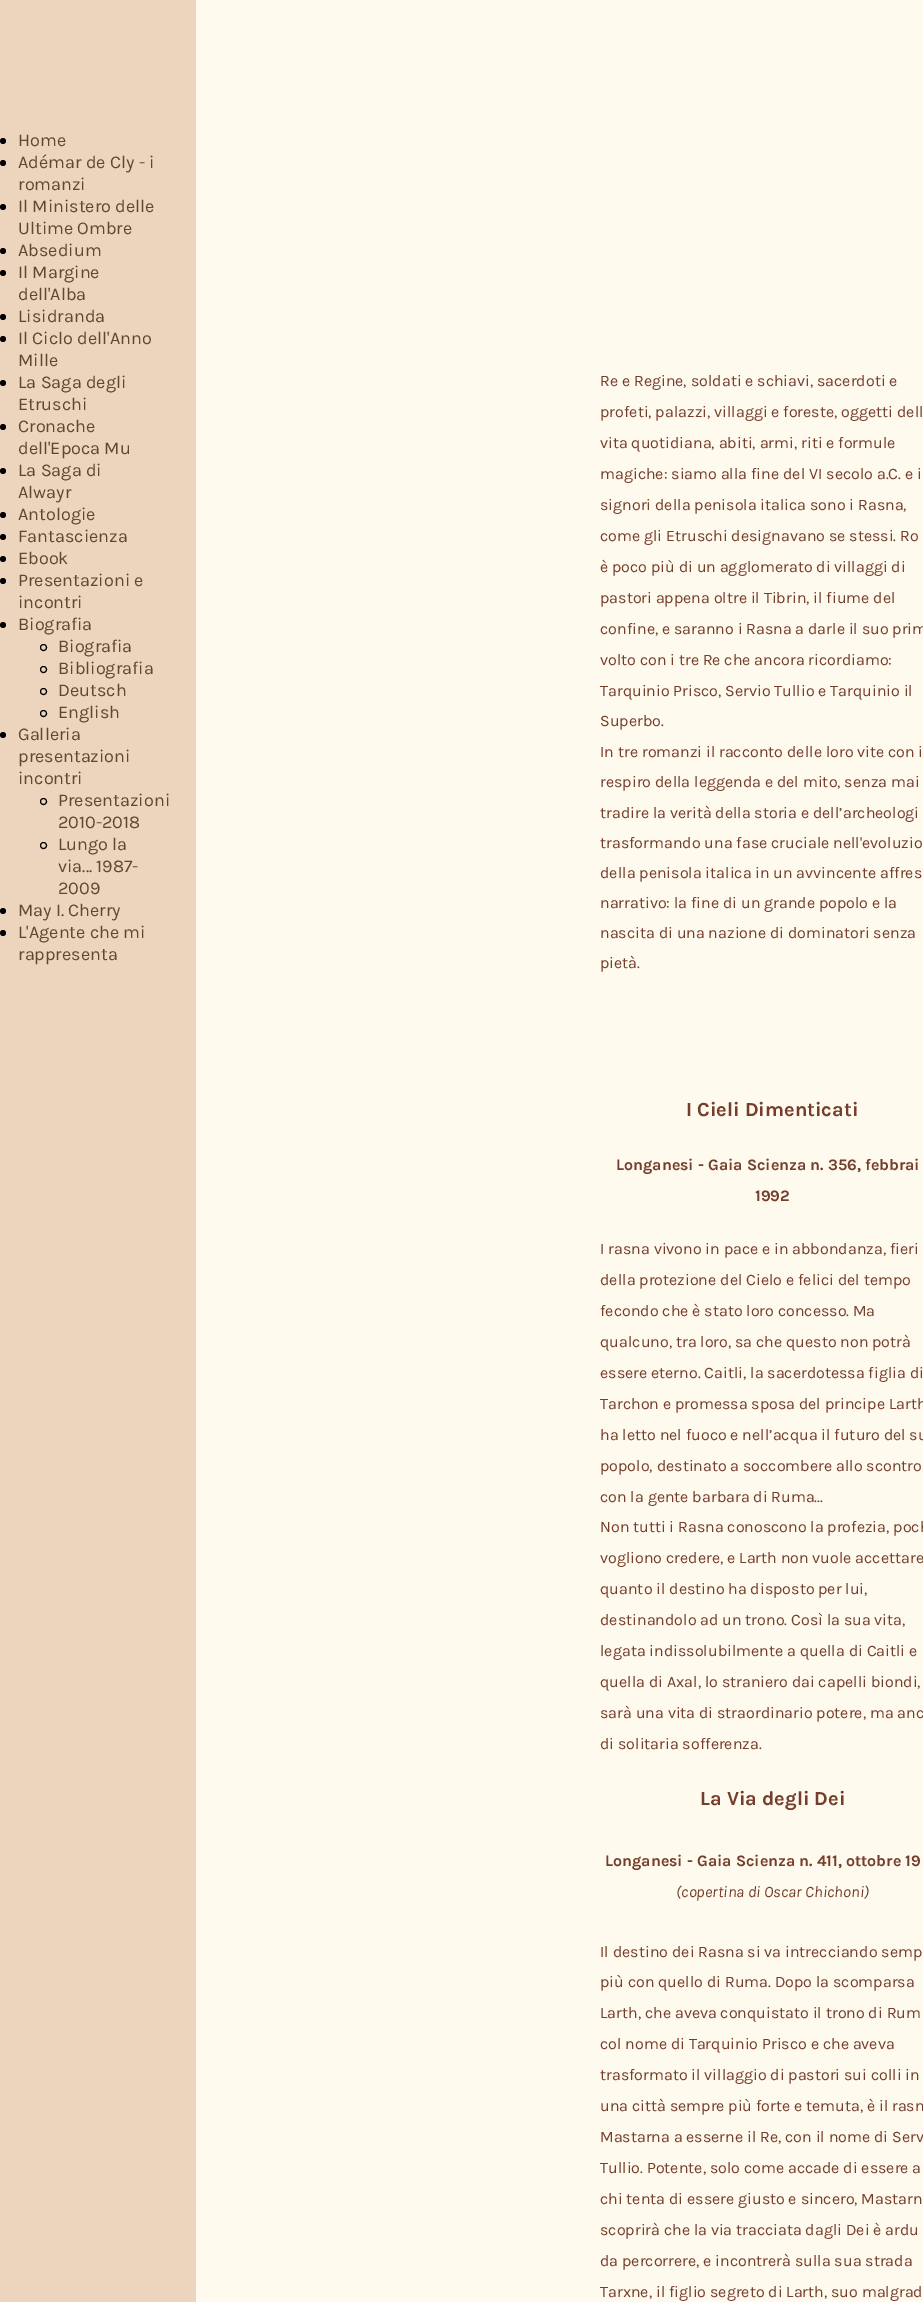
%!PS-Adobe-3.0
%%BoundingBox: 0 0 923 2302
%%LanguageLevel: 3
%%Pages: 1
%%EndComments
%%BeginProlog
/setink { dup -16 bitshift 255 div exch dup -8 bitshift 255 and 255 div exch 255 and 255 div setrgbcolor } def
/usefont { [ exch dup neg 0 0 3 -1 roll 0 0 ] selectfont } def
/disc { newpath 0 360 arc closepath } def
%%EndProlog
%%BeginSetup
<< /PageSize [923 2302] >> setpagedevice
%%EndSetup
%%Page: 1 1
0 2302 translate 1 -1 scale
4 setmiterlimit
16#FFFAEE setink
0 0 923 2302 rectfill
16#ECD5BC setink
0 0 196 2302 rectfill
16#000000 setink
3 141 3 disc fill
/Karla-Regular 18 usefont
16#5F4731 setink
18 146 moveto (Home) show
16#000000 setink
3 163 3 disc fill
16#5F4731 setink
18 168 moveto (Adémar de Cly - i) show
18 190 moveto (romanzi) show
16#000000 setink
3 207 3 disc fill
16#5F4731 setink
18 212 moveto (Il Ministero delle) show
18 234 moveto (Ultime Ombre) show
16#000000 setink
3 251 3 disc fill
16#5F4731 setink
18 256 moveto (Absedium) show
16#000000 setink
3 273 3 disc fill
16#5F4731 setink
18 278 moveto (Il Margine) show
18 300 moveto (dell'Alba) show
16#000000 setink
3 317 3 disc fill
16#5F4731 setink
18 322 moveto (Lisidranda) show
16#000000 setink
3 339 3 disc fill
16#5F4731 setink
18 344 moveto (Il Ciclo dell'Anno) show
18 366 moveto (Mille) show
16#000000 setink
3 383 3 disc fill
16#5F4731 setink
18 388 moveto (La Saga degli) show
18 410 moveto (Etruschi) show
16#000000 setink
3 427 3 disc fill
16#5F4731 setink
18 432 moveto (Cronache) show
18 454 moveto (dell'Epoca Mu) show
16#000000 setink
3 471 3 disc fill
16#5F4731 setink
18 476 moveto (La Saga di) show
18 498 moveto (Alwayr) show
16#000000 setink
3 515 3 disc fill
16#5F4731 setink
18 520 moveto (Antologie) show
16#000000 setink
3 537 3 disc fill
16#5F4731 setink
18 542 moveto (Fantascienza) show
16#000000 setink
3 559 3 disc fill
16#5F4731 setink
18 564 moveto (Ebook) show
16#000000 setink
3 581 3 disc fill
16#5F4731 setink
18 586 moveto (Presentazioni e) show
18 608 moveto (incontri) show
16#000000 setink
3 625 3 disc fill
16#5F4731 setink
18 630 moveto (Biografia) show
16#000000 setink
43.5 647.5 3 disc stroke
16#5F4731 setink
58 652 moveto (Biografia) show
16#000000 setink
43.5 669.5 3 disc stroke
16#5F4731 setink
58 674 moveto (Bibliografia) show
16#000000 setink
43.5 691.5 3 disc stroke
16#5F4731 setink
58 696 moveto (Deutsch) show
16#000000 setink
43.5 713.5 3 disc stroke
16#5F4731 setink
58 718 moveto (English) show
16#000000 setink
3 735 3 disc fill
16#5F4731 setink
[
    [(Galleria) 18 740]
    [(presentazioni) 18 762]
    [(incontri) 18 784]
] { aload pop moveto show } forall
16#000000 setink
43.5 801.5 3 disc stroke
16#5F4731 setink
58 806 moveto (Presentazioni) show
58 828 moveto (2010-2018) show
16#000000 setink
43.5 845.5 3 disc stroke
16#5F4731 setink
[
    [(Lungo la) 58 850]
    [(via... 1987-) 58 872]
    [(2009) 58 894]
] { aload pop moveto show } forall
16#000000 setink
3 911 3 disc fill
16#5F4731 setink
18 916 moveto (May I. Cherry) show
16#000000 setink
3 933 3 disc fill
16#5F4731 setink
18 938 moveto (L'Agente che mi) show
18 960 moveto (rappresenta) show
/Karla-Regular 16 usefont
16#753D2B setink
[
    [(Re e Regine, soldati e schiavi, sacerdoti e) 600 386]
    [(profeti, palazzi, villaggi e foreste, oggetti dell) 600 417]
    [(vita quotidiana, abiti, armi, riti e formule) 600 448]
    [(magiche: siamo alla fine del VI secolo a.C. e i) 600 479]
    [(signori della penisola italica sono i Rasna,) 600 510]
    [(come gli Etruschi designavano se stessi. Ro) 600 541]
    [(è poco più di un agglomerato di villaggi di) 600 572]
    [(pastori appena oltre il Tibrin, il fiume del) 600 603]
    [(confine, e saranno i Rasna a darle il suo prim) 600 634]
    [(volto con i tre Re che ancora ricordiamo:) 600 665]
    [(Tarquinio Prisco, Servio Tullio e Tarquinio il) 600 696]
    [(Superbo.) 600 726]
    [(In tre romanzi il racconto delle loro vite con i) 600 757]
    [(respiro della leggenda e del mito, senza mai) 600 787]
    [(tradire la verità della storia e dell’archeologi) 600 818]
    [(trasformando una fase cruciale nell'evoluzio) 600 848]
    [(della penisola italica in un avvincente affres) 600 878]
    [(narrativo: la fine di un grande popolo e la) 600 908]
    [(nascita di una nazione di dominatori senza) 600 938]
    [(pietà.) 600 968]
] { aload pop moveto show } forall
/Karla-Bold 20 usefont
686 1116 moveto (I Cieli Dimenticati) show
/Karla-Bold 16 usefont
616 1170 moveto (Longanesi - Gaia Scienza n. 356, febbrai) show
755 1201 moveto (1992) show
/Karla-Regular 16 usefont
[
    [(I rasna vivono in pace e in abbondanza, fieri) 600 1254]
    [(della protezione del Cielo e felici del tempo) 600 1285]
    [(fecondo che è stato loro concesso. Ma) 600 1316]
    [(qualcuno, tra loro, sa che questo non potrà) 600 1347]
    [(essere eterno. Caitli, la sacerdotessa figlia di) 600 1378]
    [(Tarchon e promessa sposa del principe Larth) 600 1409]
    [(ha letto nel fuoco e nell’acqua il futuro del su) 600 1440]
    [(popolo, destinato a soccombere allo scontro) 600 1471]
    [(con la gente barbara di Ruma...) 600 1502]
    [(Non tutti i Rasna conoscono la profezia, poch) 600 1532]
    [(vogliono credere, e Larth non vuole accettare) 600 1563]
    [(quanto il destino ha disposto per lui,) 600 1594]
    [(destinandolo ad un trono. Così la sua vita,) 600 1625]
    [(legata indissolubilmente a quella di Caitli e) 600 1656]
    [(quella di Axal, lo straniero dai capelli biondi,) 600 1687]
    [(sarà una vita di straordinario potere, ma anc) 600 1718]
    [(di solitaria sofferenza.) 600 1749]
] { aload pop moveto show } forall
/Karla-Bold 20 usefont
700 1805 moveto (La Via degli Dei) show
/Karla-Bold 16 usefont
605 1866 moveto (Longanesi - Gaia Scienza n. 411, ottobre 19) show
/Karla-Italic 16 usefont
676 1897 moveto (\(copertina di Oscar Chichoni\)) show
/Karla-Regular 16 usefont
[
    [(Il destino dei Rasna si va intrecciando semp) 600 1957]
    [(più con quello di Ruma. Dopo la scomparsa) 600 1987]
    [(Larth, che aveva conquistato il trono di Rum) 600 2018]
    [(col nome di Tarquinio Prisco e che aveva) 600 2049]
    [(trasformato il villaggio di pastori sui colli in) 600 2080]
    [(una città sempre più forte e temuta, è il rasn) 600 2111]
    [(Mastarna a esserne il Re, con il nome di Serv) 600 2142]
    [(Tullio. Potente, solo come accade di essere a) 600 2173]
    [(chi tenta di essere giusto e sincero, Mastarn) 600 2204]
    [(scoprirà che la via tracciata dagli Dei è ardu) 600 2235]
    [(da percorrere, e incontrerà sulla sua strada) 600 2266]
    [(Tarxne, il figlio segreto di Larth, suo malgrad) 600 2297]
] { aload pop moveto show } forall
showpage
%%EOF
